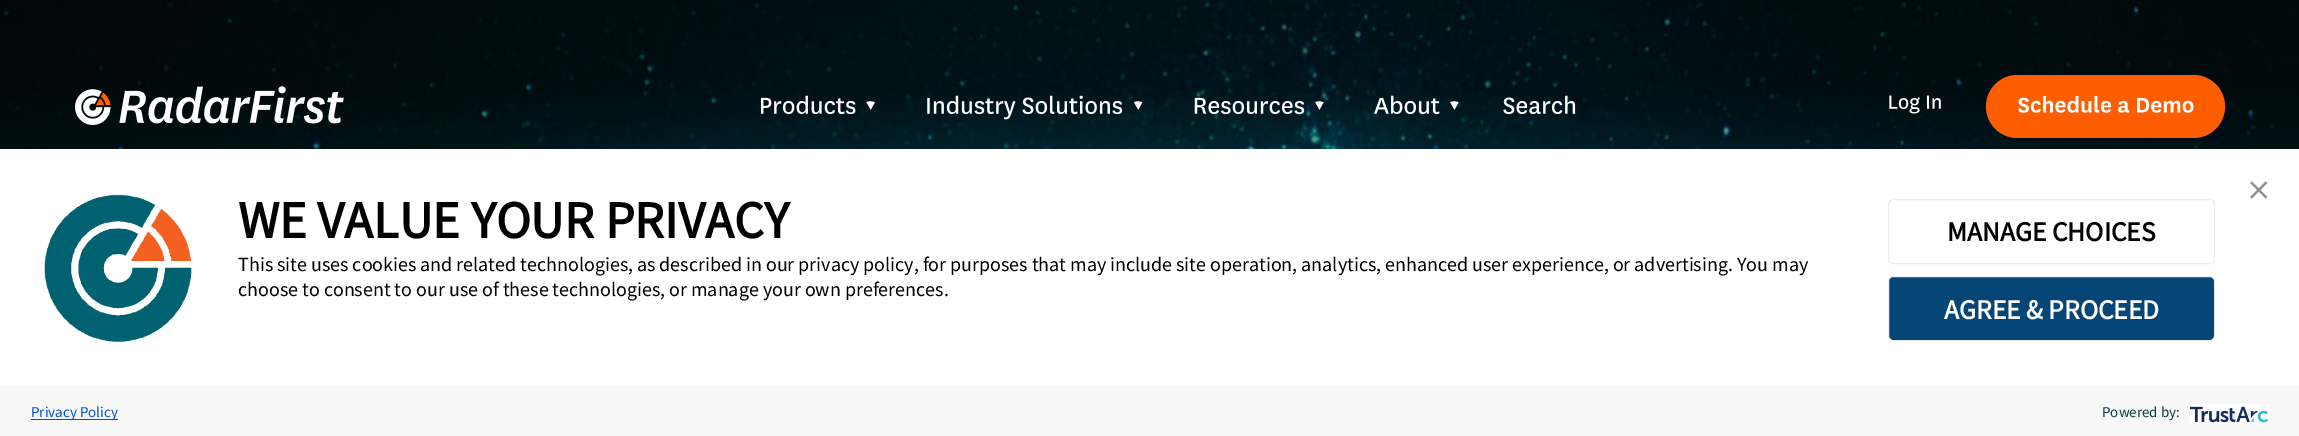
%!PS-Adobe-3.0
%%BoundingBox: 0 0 2299 436
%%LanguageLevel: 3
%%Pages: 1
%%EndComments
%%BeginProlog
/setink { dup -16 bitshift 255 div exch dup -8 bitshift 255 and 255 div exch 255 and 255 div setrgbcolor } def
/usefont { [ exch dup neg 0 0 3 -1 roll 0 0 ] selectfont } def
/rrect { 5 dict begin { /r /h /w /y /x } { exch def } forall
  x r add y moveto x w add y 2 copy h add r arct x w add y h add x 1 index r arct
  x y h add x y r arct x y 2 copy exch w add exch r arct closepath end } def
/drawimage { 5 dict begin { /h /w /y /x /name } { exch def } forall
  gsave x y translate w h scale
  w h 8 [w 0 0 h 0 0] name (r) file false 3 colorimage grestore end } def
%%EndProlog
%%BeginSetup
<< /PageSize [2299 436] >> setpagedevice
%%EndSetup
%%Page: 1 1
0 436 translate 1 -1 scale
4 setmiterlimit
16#FFFFFF setink
0 0 2299 436 rectfill
(img1.raw) 0 0 2299 149 drawimage
(img2.raw) 75 86 269 39 drawimage
(img3.raw) 761 95 95 20 drawimage
(img4.raw) 866 101 9 9 drawimage
(img5.raw) 927 95 196 25 drawimage
(img6.raw) 1134 101 9 9 drawimage
(img7.raw) 1194 97 111 18 drawimage
(img8.raw) 1315 101 9 9 drawimage
(img9.raw) 1374 95 66 20 drawimage
(img10.raw) 1450 101 9 9 drawimage
(img11.raw) 1503 95 73 20 drawimage
(img12.raw) 1889 95 52 19 drawimage
16#FF5E00 setink
1986 75 239 63 31.5 rrect fill
(img13.raw) 2018 96 176 17 drawimage
(img14.raw) 2250 181 18 18 drawimage
(img15.raw) 44 194 148 148 drawimage
/SourceSansPro-Bold 52.5 usefont
16#000000 setink
238 238 moveto (WE VALUE YOUR PRIVACY) show
/SourceSansPro-Regular 20 usefont
238 271 moveto (This site uses cookies and related technologies, as described in our privacy policy, for purposes that may include site operation, analytics, enhanced user experience, or advertising. You may) show
238 296 moveto (choose to consent to our use of these technologies, or manage your own preferences.) show
16#EEEEEE setink
1888.5 199.5 326 64 4.5 rrect stroke
/SourceSansPro-Bold 27.5 usefont
16#000000 setink
1947 241 moveto (MANAGE CHOICES) show
16#064676 setink
1888.5 276.5 326 64 4.5 rrect gsave fill grestore
16#EEEEEE setink
stroke
16#FFFFFF setink
1944 319 moveto (AGREE & PROCEED) show
16#F7F7F7 setink
0 386 2299 50 rectfill
16#0052CC setink
31 419 87 1 rectfill
/SourceSansPro-Regular 15 usefont
31 417 moveto (Privacy Policy) show
16#0A3C47 setink
2102 417 moveto (Powered by:) show
(img16.raw) 2190 404 80 20 drawimage
showpage
%%EOF
